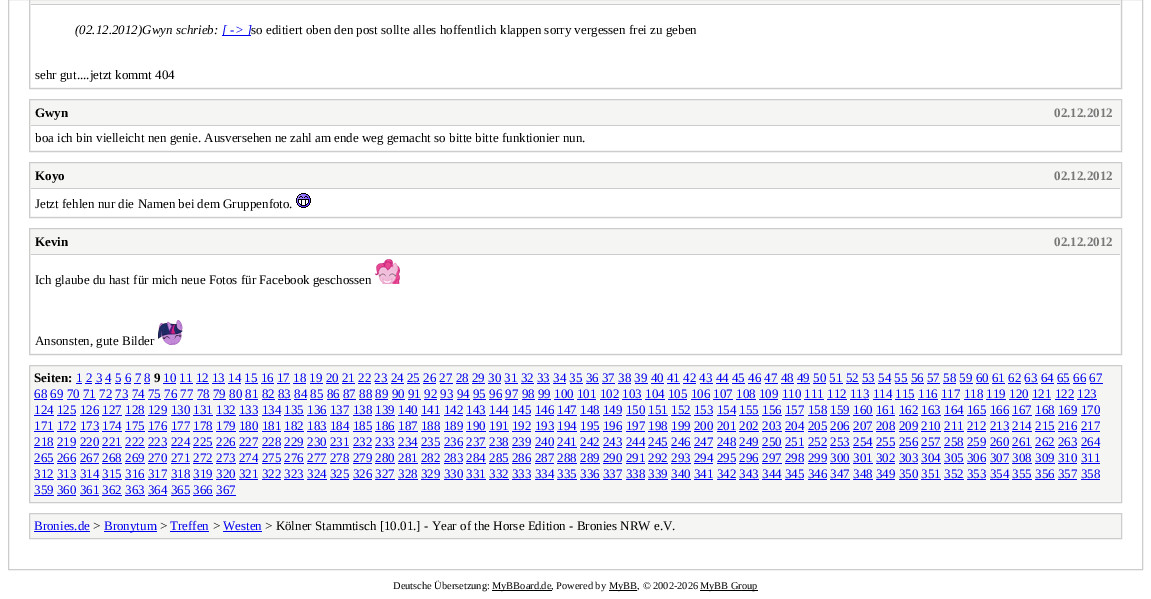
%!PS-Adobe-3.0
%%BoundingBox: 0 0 1151 599
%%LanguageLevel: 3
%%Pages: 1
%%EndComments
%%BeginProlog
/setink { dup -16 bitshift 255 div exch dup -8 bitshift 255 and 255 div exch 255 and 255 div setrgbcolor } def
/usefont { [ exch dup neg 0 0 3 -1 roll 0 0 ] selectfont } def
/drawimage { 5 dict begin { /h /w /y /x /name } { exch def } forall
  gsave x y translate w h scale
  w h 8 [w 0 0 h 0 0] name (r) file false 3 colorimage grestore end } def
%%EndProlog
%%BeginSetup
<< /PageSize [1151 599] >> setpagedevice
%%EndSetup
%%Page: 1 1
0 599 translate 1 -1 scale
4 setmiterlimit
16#FFFFFF setink
0 0 1151 599 rectfill
16#CCCCCC setink
8.5 -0.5 1134 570 rectstroke
16#F5F5F4 setink
29.5 -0.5 moveto 1121.5 -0.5 lineto 1121.5 88.5 lineto 29.5 88.5 lineto closepath gsave fill grestore
16#CCCCCC setink
stroke
31 4 1089 1 rectfill
16#FFFFFF setink
31 5 1089 82 rectfill
/LiberationSerif-Italic 13 usefont
16#000000 setink
75 34 moveto (\(02.12.2012\)Gwyn schrieb:) show
16#0000EE setink
222 35 29 1 rectfill
222 34 moveto ([ -> ]) show
/LiberationSerif-Regular 13 usefont
16#000000 setink
251 34 moveto (so editiert oben den post sollte alles hoffentlich klappen sorry vergessen frei zu geben) show
35 79 moveto (sehr gut....jetzt kommt 404) show
16#F5F5F4 setink
29.5 99.5 moveto 1121.5 99.5 lineto 1121.5 151.5 lineto 29.5 151.5 lineto closepath gsave fill grestore
16#CCCCCC setink
stroke
31 125 1089 1 rectfill
/LiberationSerif-Bold 13 usefont
16#000000 setink
35 117 moveto (Gwyn) show
16#777777 setink
1054 117 moveto (02.12.2012) show
16#FFFFFF setink
31 126 1089 24 rectfill
/LiberationSerif-Regular 13 usefont
16#000000 setink
35 142 moveto (boa ich bin vielleicht nen genie. Ausversehen ne zahl am ende weg gemacht so bitte bitte funktionier nun.) show
16#F5F5F4 setink
29.5 162.5 moveto 1121.5 162.5 lineto 1121.5 217.5 lineto 29.5 217.5 lineto closepath gsave fill grestore
16#CCCCCC setink
stroke
31 188 1089 1 rectfill
/LiberationSerif-Bold 13 usefont
16#000000 setink
35 180 moveto (Koyo) show
16#777777 setink
1054 180 moveto (02.12.2012) show
16#FFFFFF setink
31 189 1089 27 rectfill
/LiberationSerif-Regular 13 usefont
16#000000 setink
35 208 moveto (Jetzt fehlen nur die Namen bei dem Gruppenfoto.) show
(img1.raw) 296 193 15 15 drawimage
16#F5F5F4 setink
29.5 228.5 moveto 1121.5 228.5 lineto 1121.5 354.5 lineto 29.5 354.5 lineto closepath gsave fill grestore
16#CCCCCC setink
stroke
31 254 1089 1 rectfill
/LiberationSerif-Bold 13 usefont
16#000000 setink
35 246 moveto (Kevin) show
16#777777 setink
1054 246 moveto (02.12.2012) show
16#FFFFFF setink
31 255 1089 98 rectfill
/LiberationSerif-Regular 13 usefont
16#000000 setink
35 284 moveto (Ich glaube du hast für mich neue Fotos für Facebook geschossen) show
(img2.raw) 375 259 25 25 drawimage
35 345 moveto (Ansonsten, gute Bilder) show
(img3.raw) 158 320 25 25 drawimage
16#F5F5F4 setink
29.5 365.5 moveto 1121.5 365.5 lineto 1121.5 502.5 lineto 29.5 502.5 lineto closepath gsave fill grestore
16#CCCCCC setink
stroke
/LiberationSerif-Bold 13 usefont
16#000000 setink
34 382 moveto (Seiten:) show
/LiberationSerif-Regular 13 usefont
16#0000EE setink
76 382 moveto (1 2 3 4 5 6 7 8) show
76 383 6 1 rectfill
/LiberationSerif-Bold 13 usefont
16#000000 setink
154 382 moveto (9) show
/LiberationSerif-Regular 13 usefont
16#0000EE setink
163 382 moveto (10 11 12 13 14 15 16 17 18 19 20 21 22 23 24 25 26 27 28 29 30 31 32 33 34 35 36 37 38 39 40 41 42 43 44 45 46 47 48 49 50 51 52 53 54 55 56 57 58 59 60 61 62 63 64 65 66 67) show
[
    [163 383 13 1 16#0000EE]
    [85 383 7 1 16#0000EE]
    [95 383 7 1 16#0000EE]
    [105 383 6 1 16#0000EE]
    [115 383 6 1 16#0000EE]
    [124 383 7 1 16#0000EE]
    [134 383 7 1 16#0000EE]
    [144 383 6 1 16#0000EE]
    [180 383 13 1 16#0000EE]
    [196 383 13 1 16#0000EE]
    [212 383 13 1 16#0000EE]
    [228 383 13 1 16#0000EE]
    [245 383 13 1 16#0000EE]
    [261 383 13 1 16#0000EE]
    [277 383 13 1 16#0000EE]
    [293 383 13 1 16#0000EE]
    [310 383 13 1 16#0000EE]
    [326 383 13 1 16#0000EE]
    [342 383 13 1 16#0000EE]
    [358 383 13 1 16#0000EE]
    [375 383 13 1 16#0000EE]
    [391 383 13 1 16#0000EE]
    [407 383 13 1 16#0000EE]
    [423 383 13 1 16#0000EE]
    [440 383 13 1 16#0000EE]
    [456 383 13 1 16#0000EE]
    [472 383 13 1 16#0000EE]
    [488 383 13 1 16#0000EE]
    [505 383 13 1 16#0000EE]
    [521 383 13 1 16#0000EE]
    [537 383 13 1 16#0000EE]
    [553 383 13 1 16#0000EE]
    [570 383 13 1 16#0000EE]
    [586 383 13 1 16#0000EE]
    [602 383 13 1 16#0000EE]
    [618 383 13 1 16#0000EE]
    [635 383 13 1 16#0000EE]
    [651 383 13 1 16#0000EE]
    [667 383 13 1 16#0000EE]
    [683 383 13 1 16#0000EE]
    [700 383 13 1 16#0000EE]
    [716 383 13 1 16#0000EE]
    [732 383 13 1 16#0000EE]
    [748 383 13 1 16#0000EE]
    [765 383 13 1 16#0000EE]
    [781 383 13 1 16#0000EE]
    [797 383 13 1 16#0000EE]
    [813 383 13 1 16#0000EE]
    [830 383 13 1 16#0000EE]
    [846 383 13 1 16#0000EE]
    [862 383 13 1 16#0000EE]
    [878 383 13 1 16#0000EE]
    [895 383 13 1 16#0000EE]
    [911 383 13 1 16#0000EE]
    [927 383 13 1 16#0000EE]
    [943 383 13 1 16#0000EE]
    [960 383 13 1 16#0000EE]
    [976 383 13 1 16#0000EE]
    [992 383 13 1 16#0000EE]
    [1008 383 13 1 16#0000EE]
    [1025 383 13 1 16#0000EE]
    [1041 383 13 1 16#0000EE]
    [1057 383 13 1 16#0000EE]
    [1073 383 13 1 16#0000EE]
    [1090 383 13 1 16#0000EE]
] { aload pop setink rectfill } forall
34 398 moveto (68 69 70 71 72 73 74 75 76 77 78 79 80 81 82 83 84 85 86 87 88 89 90 91 92 93 94 95 96 97 98 99 100 101 102 103 104 105 106 107 108 109 110 111 112 113 114 115 116 117 118 119 120 121 122 123) show
[
    [34 399 13 1 16#0000EE]
    [50 399 13 1 16#0000EE]
    [67 399 13 1 16#0000EE]
    [83 399 13 1 16#0000EE]
    [99 399 13 1 16#0000EE]
    [115 399 13 1 16#0000EE]
    [132 399 13 1 16#0000EE]
    [148 399 13 1 16#0000EE]
    [164 399 13 1 16#0000EE]
    [180 399 13 1 16#0000EE]
    [197 399 13 1 16#0000EE]
    [213 399 13 1 16#0000EE]
    [229 399 13 1 16#0000EE]
    [245 399 13 1 16#0000EE]
    [262 399 13 1 16#0000EE]
    [278 399 13 1 16#0000EE]
    [294 399 13 1 16#0000EE]
    [310 399 13 1 16#0000EE]
    [327 399 13 1 16#0000EE]
    [343 399 13 1 16#0000EE]
    [359 399 13 1 16#0000EE]
    [375 399 13 1 16#0000EE]
    [392 399 13 1 16#0000EE]
    [408 399 13 1 16#0000EE]
    [424 399 13 1 16#0000EE]
    [440 399 13 1 16#0000EE]
    [457 399 13 1 16#0000EE]
    [473 399 13 1 16#0000EE]
    [489 399 13 1 16#0000EE]
    [505 399 13 1 16#0000EE]
    [522 399 13 1 16#0000EE]
    [538 399 13 1 16#0000EE]
    [554 399 20 1 16#0000EE]
    [577 399 19 1 16#0000EE]
    [600 399 19 1 16#0000EE]
    [622 399 20 1 16#0000EE]
    [645 399 20 1 16#0000EE]
    [668 399 19 1 16#0000EE]
    [691 399 19 1 16#0000EE]
    [713 399 20 1 16#0000EE]
    [736 399 20 1 16#0000EE]
    [759 399 19 1 16#0000EE]
    [782 399 19 1 16#0000EE]
    [804 399 20 1 16#0000EE]
    [827 399 20 1 16#0000EE]
    [850 399 19 1 16#0000EE]
    [873 399 19 1 16#0000EE]
    [895 399 20 1 16#0000EE]
    [918 399 20 1 16#0000EE]
    [941 399 19 1 16#0000EE]
    [964 399 19 1 16#0000EE]
    [986 399 20 1 16#0000EE]
    [1009 399 20 1 16#0000EE]
    [1032 399 19 1 16#0000EE]
    [1055 399 19 1 16#0000EE]
    [1077 399 20 1 16#0000EE]
] { aload pop setink rectfill } forall
34 414 moveto (124 125 126 127 128 129 130 131 132 133 134 135 136 137 138 139 140 141 142 143 144 145 146 147 148 149 150 151 152 153 154 155 156 157 158 159 160 161 162 163 164 165 166 167 168 169 170) show
[
    [34 415 20 1 16#0000EE]
    [57 415 19 1 16#0000EE]
    [80 415 19 1 16#0000EE]
    [102 415 20 1 16#0000EE]
    [125 415 20 1 16#0000EE]
    [148 415 19 1 16#0000EE]
    [171 415 19 1 16#0000EE]
    [193 415 20 1 16#0000EE]
    [216 415 20 1 16#0000EE]
    [239 415 19 1 16#0000EE]
    [262 415 19 1 16#0000EE]
    [284 415 20 1 16#0000EE]
    [307 415 20 1 16#0000EE]
    [330 415 19 1 16#0000EE]
    [353 415 19 1 16#0000EE]
    [375 415 20 1 16#0000EE]
    [398 415 20 1 16#0000EE]
    [421 415 19 1 16#0000EE]
    [444 415 19 1 16#0000EE]
    [466 415 20 1 16#0000EE]
    [489 415 20 1 16#0000EE]
    [512 415 19 1 16#0000EE]
    [535 415 19 1 16#0000EE]
    [557 415 20 1 16#0000EE]
    [580 415 20 1 16#0000EE]
    [603 415 19 1 16#0000EE]
    [626 415 19 1 16#0000EE]
    [648 415 20 1 16#0000EE]
    [671 415 20 1 16#0000EE]
    [694 415 19 1 16#0000EE]
    [717 415 19 1 16#0000EE]
    [739 415 20 1 16#0000EE]
    [762 415 20 1 16#0000EE]
    [785 415 19 1 16#0000EE]
    [808 415 19 1 16#0000EE]
    [830 415 20 1 16#0000EE]
    [853 415 20 1 16#0000EE]
    [876 415 19 1 16#0000EE]
    [899 415 19 1 16#0000EE]
    [921 415 20 1 16#0000EE]
    [944 415 20 1 16#0000EE]
    [967 415 19 1 16#0000EE]
    [990 415 19 1 16#0000EE]
    [1012 415 20 1 16#0000EE]
    [1035 415 20 1 16#0000EE]
    [1058 415 19 1 16#0000EE]
    [1081 415 19 1 16#0000EE]
] { aload pop setink rectfill } forall
34 430 moveto (171 172 173 174 175 176 177 178 179 180 181 182 183 184 185 186 187 188 189 190 191 192 193 194 195 196 197 198 199 200 201 202 203 204 205 206 207 208 209 210 211 212 213 214 215 216 217) show
[
    [34 431 20 1 16#0000EE]
    [57 431 19 1 16#0000EE]
    [80 431 19 1 16#0000EE]
    [102 431 20 1 16#0000EE]
    [125 431 20 1 16#0000EE]
    [148 431 19 1 16#0000EE]
    [171 431 19 1 16#0000EE]
    [193 431 20 1 16#0000EE]
    [216 431 20 1 16#0000EE]
    [239 431 19 1 16#0000EE]
    [262 431 19 1 16#0000EE]
    [284 431 20 1 16#0000EE]
    [307 431 20 1 16#0000EE]
    [330 431 19 1 16#0000EE]
    [353 431 19 1 16#0000EE]
    [375 431 20 1 16#0000EE]
    [398 431 20 1 16#0000EE]
    [421 431 19 1 16#0000EE]
    [444 431 19 1 16#0000EE]
    [466 431 20 1 16#0000EE]
    [489 431 20 1 16#0000EE]
    [512 431 19 1 16#0000EE]
    [535 431 19 1 16#0000EE]
    [557 431 20 1 16#0000EE]
    [580 431 20 1 16#0000EE]
    [603 431 19 1 16#0000EE]
    [626 431 19 1 16#0000EE]
    [648 431 20 1 16#0000EE]
    [671 431 20 1 16#0000EE]
    [694 431 19 1 16#0000EE]
    [717 431 19 1 16#0000EE]
    [739 431 20 1 16#0000EE]
    [762 431 20 1 16#0000EE]
    [785 431 19 1 16#0000EE]
    [808 431 19 1 16#0000EE]
    [830 431 20 1 16#0000EE]
    [853 431 20 1 16#0000EE]
    [876 431 19 1 16#0000EE]
    [899 431 19 1 16#0000EE]
    [921 431 20 1 16#0000EE]
    [944 431 20 1 16#0000EE]
    [967 431 19 1 16#0000EE]
    [990 431 19 1 16#0000EE]
    [1012 431 20 1 16#0000EE]
    [1035 431 20 1 16#0000EE]
    [1058 431 19 1 16#0000EE]
    [1081 431 19 1 16#0000EE]
] { aload pop setink rectfill } forall
34 446 moveto (218 219 220 221 222 223 224 225 226 227 228 229 230 231 232 233 234 235 236 237 238 239 240 241 242 243 244 245 246 247 248 249 250 251 252 253 254 255 256 257 258 259 260 261 262 263 264) show
[
    [34 447 20 1 16#0000EE]
    [57 447 19 1 16#0000EE]
    [80 447 19 1 16#0000EE]
    [102 447 20 1 16#0000EE]
    [125 447 20 1 16#0000EE]
    [148 447 19 1 16#0000EE]
    [171 447 19 1 16#0000EE]
    [193 447 20 1 16#0000EE]
    [216 447 20 1 16#0000EE]
    [239 447 19 1 16#0000EE]
    [262 447 19 1 16#0000EE]
    [284 447 20 1 16#0000EE]
    [307 447 20 1 16#0000EE]
    [330 447 19 1 16#0000EE]
    [353 447 19 1 16#0000EE]
    [375 447 20 1 16#0000EE]
    [398 447 20 1 16#0000EE]
    [421 447 19 1 16#0000EE]
    [444 447 19 1 16#0000EE]
    [466 447 20 1 16#0000EE]
    [489 447 20 1 16#0000EE]
    [512 447 19 1 16#0000EE]
    [535 447 19 1 16#0000EE]
    [557 447 20 1 16#0000EE]
    [580 447 20 1 16#0000EE]
    [603 447 19 1 16#0000EE]
    [626 447 19 1 16#0000EE]
    [648 447 20 1 16#0000EE]
    [671 447 20 1 16#0000EE]
    [694 447 19 1 16#0000EE]
    [717 447 19 1 16#0000EE]
    [739 447 20 1 16#0000EE]
    [762 447 20 1 16#0000EE]
    [785 447 19 1 16#0000EE]
    [808 447 19 1 16#0000EE]
    [830 447 20 1 16#0000EE]
    [853 447 20 1 16#0000EE]
    [876 447 19 1 16#0000EE]
    [899 447 19 1 16#0000EE]
    [921 447 20 1 16#0000EE]
    [944 447 20 1 16#0000EE]
    [967 447 19 1 16#0000EE]
    [990 447 19 1 16#0000EE]
    [1012 447 20 1 16#0000EE]
    [1035 447 20 1 16#0000EE]
    [1058 447 19 1 16#0000EE]
    [1081 447 19 1 16#0000EE]
] { aload pop setink rectfill } forall
34 462 moveto (265 266 267 268 269 270 271 272 273 274 275 276 277 278 279 280 281 282 283 284 285 286 287 288 289 290 291 292 293 294 295 296 297 298 299 300 301 302 303 304 305 306 307 308 309 310 311) show
[
    [34 463 20 1 16#0000EE]
    [57 463 19 1 16#0000EE]
    [80 463 19 1 16#0000EE]
    [102 463 20 1 16#0000EE]
    [125 463 20 1 16#0000EE]
    [148 463 19 1 16#0000EE]
    [171 463 19 1 16#0000EE]
    [193 463 20 1 16#0000EE]
    [216 463 20 1 16#0000EE]
    [239 463 19 1 16#0000EE]
    [262 463 19 1 16#0000EE]
    [284 463 20 1 16#0000EE]
    [307 463 20 1 16#0000EE]
    [330 463 19 1 16#0000EE]
    [353 463 19 1 16#0000EE]
    [375 463 20 1 16#0000EE]
    [398 463 20 1 16#0000EE]
    [421 463 19 1 16#0000EE]
    [444 463 19 1 16#0000EE]
    [466 463 20 1 16#0000EE]
    [489 463 20 1 16#0000EE]
    [512 463 19 1 16#0000EE]
    [535 463 19 1 16#0000EE]
    [557 463 20 1 16#0000EE]
    [580 463 20 1 16#0000EE]
    [603 463 19 1 16#0000EE]
    [626 463 19 1 16#0000EE]
    [648 463 20 1 16#0000EE]
    [671 463 20 1 16#0000EE]
    [694 463 19 1 16#0000EE]
    [717 463 19 1 16#0000EE]
    [739 463 20 1 16#0000EE]
    [762 463 20 1 16#0000EE]
    [785 463 19 1 16#0000EE]
    [808 463 19 1 16#0000EE]
    [830 463 20 1 16#0000EE]
    [853 463 20 1 16#0000EE]
    [876 463 19 1 16#0000EE]
    [899 463 19 1 16#0000EE]
    [921 463 20 1 16#0000EE]
    [944 463 20 1 16#0000EE]
    [967 463 19 1 16#0000EE]
    [990 463 19 1 16#0000EE]
    [1012 463 20 1 16#0000EE]
    [1035 463 20 1 16#0000EE]
    [1058 463 19 1 16#0000EE]
    [1081 463 19 1 16#0000EE]
] { aload pop setink rectfill } forall
34 478 moveto (312 313 314 315 316 317 318 319 320 321 322 323 324 325 326 327 328 329 330 331 332 333 334 335 336 337 338 339 340 341 342 343 344 345 346 347 348 349 350 351 352 353 354 355 356 357 358) show
[
    [34 479 20 1 16#0000EE]
    [57 479 19 1 16#0000EE]
    [80 479 19 1 16#0000EE]
    [102 479 20 1 16#0000EE]
    [125 479 20 1 16#0000EE]
    [148 479 19 1 16#0000EE]
    [171 479 19 1 16#0000EE]
    [193 479 20 1 16#0000EE]
    [216 479 20 1 16#0000EE]
    [239 479 19 1 16#0000EE]
    [262 479 19 1 16#0000EE]
    [284 479 20 1 16#0000EE]
    [307 479 20 1 16#0000EE]
    [330 479 19 1 16#0000EE]
    [353 479 19 1 16#0000EE]
    [375 479 20 1 16#0000EE]
    [398 479 20 1 16#0000EE]
    [421 479 19 1 16#0000EE]
    [444 479 19 1 16#0000EE]
    [466 479 20 1 16#0000EE]
    [489 479 20 1 16#0000EE]
    [512 479 19 1 16#0000EE]
    [535 479 19 1 16#0000EE]
    [557 479 20 1 16#0000EE]
    [580 479 20 1 16#0000EE]
    [603 479 19 1 16#0000EE]
    [626 479 19 1 16#0000EE]
    [648 479 20 1 16#0000EE]
    [671 479 20 1 16#0000EE]
    [694 479 19 1 16#0000EE]
    [717 479 19 1 16#0000EE]
    [739 479 20 1 16#0000EE]
    [762 479 20 1 16#0000EE]
    [785 479 19 1 16#0000EE]
    [808 479 19 1 16#0000EE]
    [830 479 20 1 16#0000EE]
    [853 479 20 1 16#0000EE]
    [876 479 19 1 16#0000EE]
    [899 479 19 1 16#0000EE]
    [921 479 20 1 16#0000EE]
    [944 479 20 1 16#0000EE]
    [967 479 19 1 16#0000EE]
    [990 479 19 1 16#0000EE]
    [1012 479 20 1 16#0000EE]
    [1035 479 20 1 16#0000EE]
    [1058 479 19 1 16#0000EE]
    [1081 479 19 1 16#0000EE]
] { aload pop setink rectfill } forall
34 494 moveto (359 360 361 362 363 364 365 366 367) show
[
    [34 495 20 1 16#0000EE]
    [57 495 19 1 16#0000EE]
    [80 495 19 1 16#0000EE]
    [102 495 20 1 16#0000EE]
    [125 495 20 1 16#0000EE]
    [148 495 19 1 16#0000EE]
    [171 495 19 1 16#0000EE]
    [193 495 20 1 16#0000EE]
    [216 495 20 1 16#0000EE]
] { aload pop setink rectfill } forall
16#F5F5F4 setink
29.5 513.5 moveto 1121.5 513.5 lineto 1121.5 538.5 lineto 29.5 538.5 lineto closepath gsave fill grestore
16#CCCCCC setink
stroke
16#0000EE setink
34 530 moveto (Bronies.de) show
34 531 56 1 rectfill
16#000000 setink
93 530 moveto (>) show
16#0000EE setink
104 531 53 1 rectfill
104 530 moveto (Bronytum) show
16#000000 setink
160 530 moveto (>) show
16#0000EE setink
170 530 moveto (Treffen) show
170 531 39 1 rectfill
16#000000 setink
213 530 moveto (>) show
16#0000EE setink
223 530 moveto (Westen) show
223 531 39 1 rectfill
16#000000 setink
265 530 moveto (> Kölner Stammtisch [10.01.] - Year of the Horse Edition - Bronies NRW e.V.) show
/LiberationSerif-Regular 10.4 usefont
393 589 moveto (Deutsche Übersetzung:) show
492 590 60 1 rectfill
492 589 moveto (MyBBoard.de, Powered by) show
609 590 28 1 rectfill
609 589 moveto (MyBB, © 2002-2026) show
700 590 58 1 rectfill
700 589 moveto (MyBB Group) show
showpage
%%EOF
